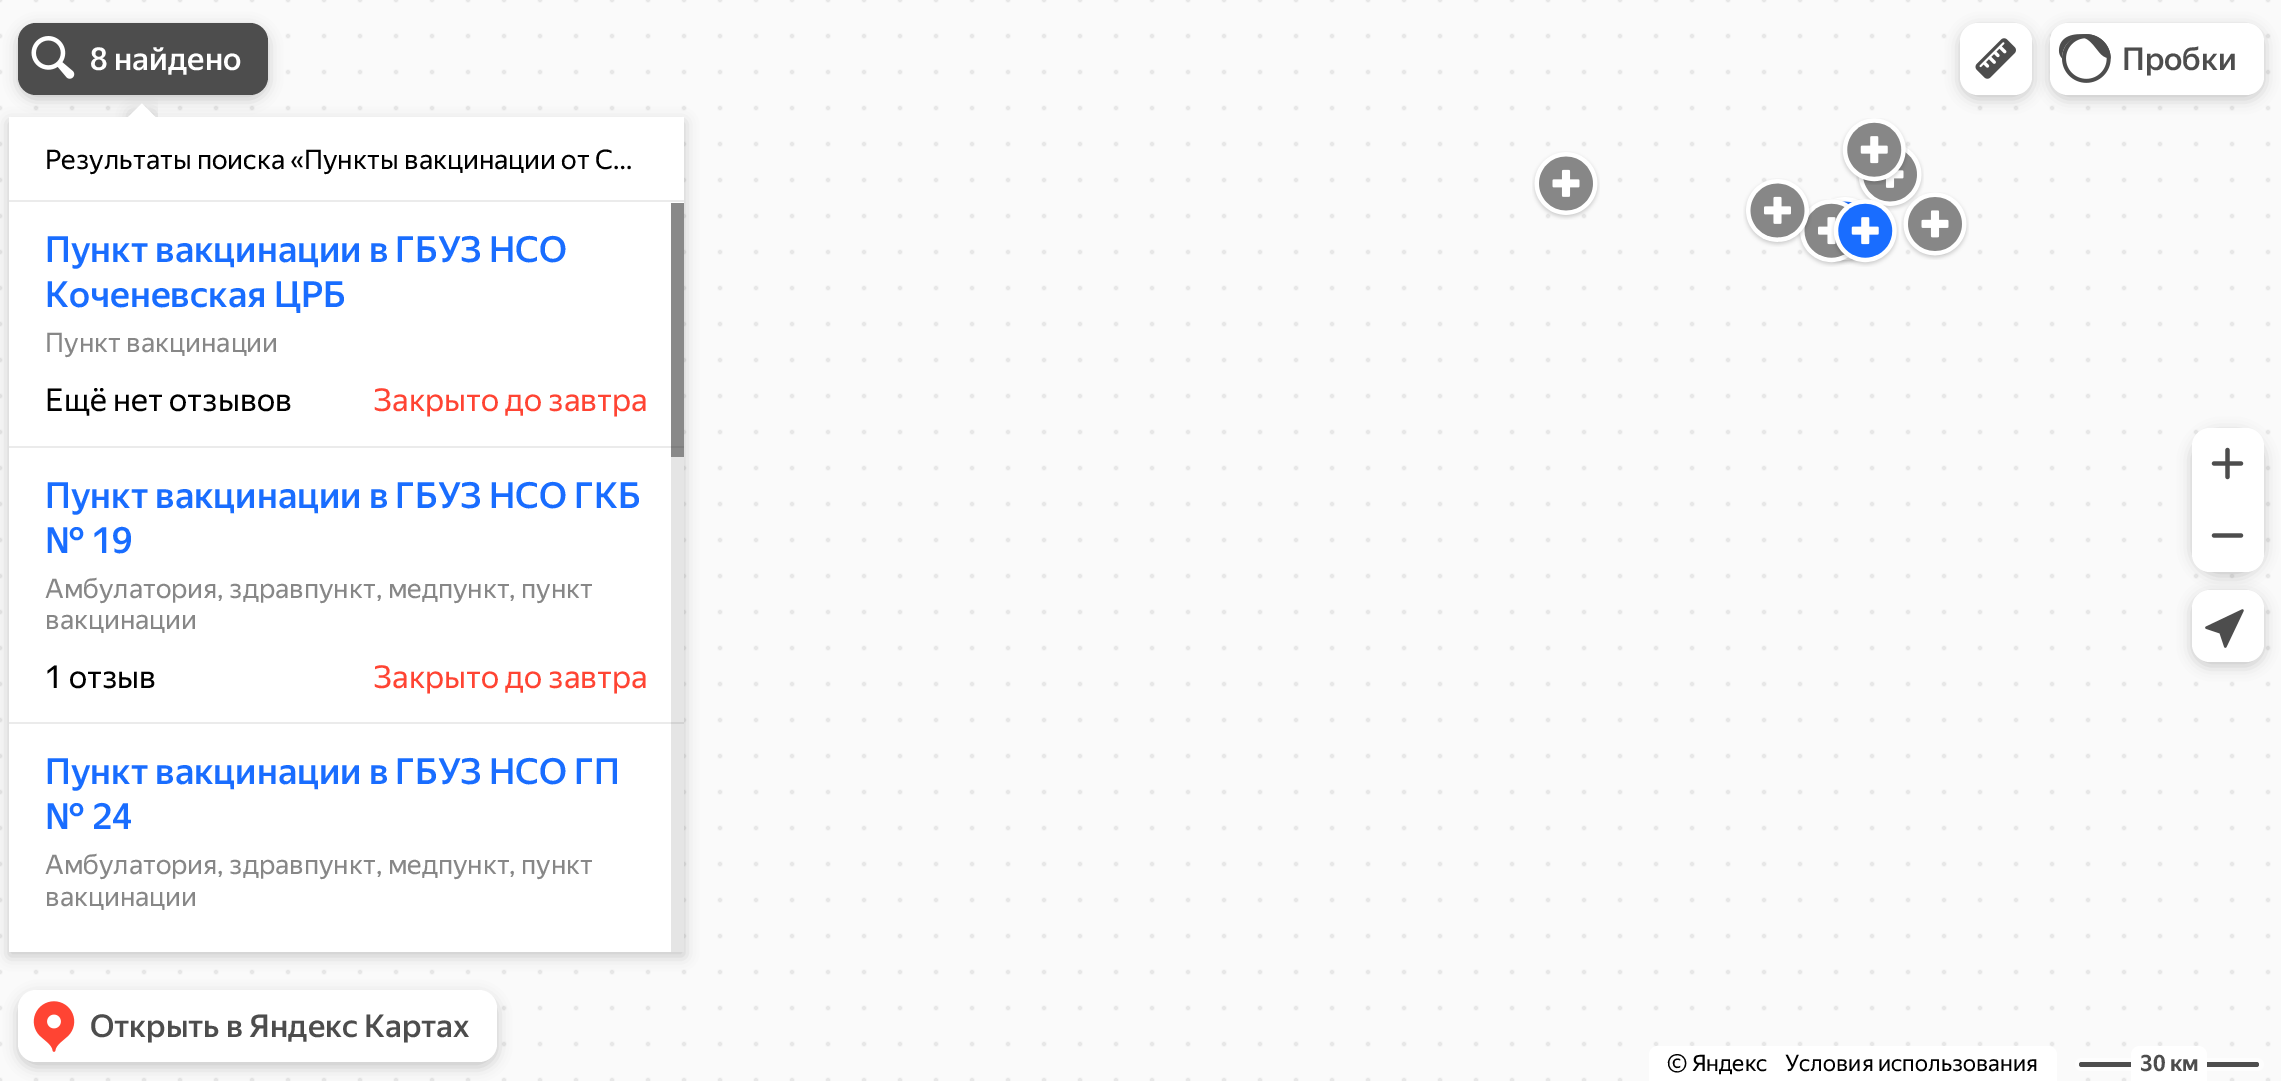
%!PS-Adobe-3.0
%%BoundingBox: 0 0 2281 1081
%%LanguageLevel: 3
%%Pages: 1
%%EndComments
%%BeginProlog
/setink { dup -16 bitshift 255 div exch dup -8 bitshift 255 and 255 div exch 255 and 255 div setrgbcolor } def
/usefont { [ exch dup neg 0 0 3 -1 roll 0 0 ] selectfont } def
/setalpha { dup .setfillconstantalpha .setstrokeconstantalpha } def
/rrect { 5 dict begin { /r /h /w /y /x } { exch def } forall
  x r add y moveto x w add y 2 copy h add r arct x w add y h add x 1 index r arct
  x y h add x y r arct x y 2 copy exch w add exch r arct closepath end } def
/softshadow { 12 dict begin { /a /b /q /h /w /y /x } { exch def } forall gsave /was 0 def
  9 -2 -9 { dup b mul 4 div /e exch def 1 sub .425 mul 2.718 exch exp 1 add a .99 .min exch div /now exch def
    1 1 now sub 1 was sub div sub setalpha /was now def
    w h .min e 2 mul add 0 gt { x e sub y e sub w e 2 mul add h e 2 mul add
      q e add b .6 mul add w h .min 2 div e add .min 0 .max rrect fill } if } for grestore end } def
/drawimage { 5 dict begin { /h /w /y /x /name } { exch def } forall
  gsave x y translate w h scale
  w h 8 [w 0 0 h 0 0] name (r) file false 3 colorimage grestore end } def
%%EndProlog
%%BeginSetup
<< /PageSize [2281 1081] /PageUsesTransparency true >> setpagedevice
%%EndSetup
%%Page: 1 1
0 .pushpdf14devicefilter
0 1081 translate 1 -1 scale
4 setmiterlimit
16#FFFFFF setink
0 0 2281 1081 rectfill
(img1.raw) 0 0 2281 1081 drawimage
16#000000 setink
18 27 250 72 18 7 0.2 softshadow
16#4D4D4D setink
18 23 250 72 18 rrect fill
(img2.raw) 31 36 44 43 drawimage
/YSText-Medium 31.5 usefont
16#FFFFFF setink
90 70 moveto (8 найдено) show
16#000000 setink
1960 27 72 72 18 7 0.2 softshadow
16#FFFFFF setink
1960 23 72 72 18 rrect fill
(img3.raw) 1975 38 41 41 drawimage
16#000000 setink
2050 27 214 72 18 7 0.2 softshadow
16#FFFFFF setink
2050 23 214 72 18 rrect fill
(img4.raw) 2058 34 53 49 drawimage
16#4D4D4D setink
2122 70 moveto (Пробки) show
16#000000 setink
2192 432 72 144 27 7 0.2 softshadow
16#FFFFFF setink
2210 428 moveto 2246 428 lineto 2256 428 2264 436 2264 446 curveto 2264 500 lineto 2192 500 lineto 2192 446 lineto 2192 436 2200 428 2210 428 curveto closepath fill
(img5.raw) 2211 447 33 33 drawimage
2192 500 moveto 2264 500 lineto 2264 554 lineto 2264 564 2256 572 2246 572 curveto 2210 572 lineto 2200 572 2192 564 2192 554 curveto closepath fill
(img6.raw) 2211 533 33 5 drawimage
16#000000 setink
2192 594 72 72 18 7 0.2 softshadow
16#FFFFFF setink
2192 590 72 72 18 rrect fill
(img7.raw) 2205 609 39 39 drawimage
16#000000 setink
18 995 479 72 18 7 0.2 softshadow
16#FFFFFF setink
18 990 479 72 18 rrect fill
(img8.raw) 33 1001 42 51 drawimage
16#4D4D4D setink
90 1037 moveto (Открыть в Яндекс Картах) show
16#FFFFFF setink
1658 1046 moveto 2048 1046 lineto 2053 1046 2057 1050 2057 1055 curveto 2057 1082 lineto 1649 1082 lineto 1649 1055 lineto 1649 1050 1653 1046 1658 1046 curveto closepath fill
/YSText-Regular 22.5 usefont
16#000000 setink
1667 1071 moveto (© Яндекс) show
1785 1071 moveto (Условия использования) show
16#FDFDFD setink
2075 1058 189 13 6.5 rrect fill
16#4D4D4D setink
2079 1062 180 5 2.5 rrect fill
16#FFFFFF setink
2140 1046 moveto 2198 1046 lineto 2203 1046 2207 1050 2207 1055 curveto 2207 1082 lineto 2131 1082 lineto 2131 1055 lineto 2131 1050 2135 1046 2140 1046 curveto closepath fill
/YSText-Bold 22.5 usefont
16#4D4D4D setink
2140 1071 moveto (30 км) show
(img15.raw) 1831 196 28 69 drawimage
(img18.raw) 1901 192 68 68 drawimage
(img19.raw) 1921 210 28 28 drawimage
(img16.raw) 1856 146 68 65 drawimage
(img17.raw) 1885 170 19 18 drawimage
(img9.raw) 1840 118 68 67 drawimage
(img10.raw) 1860 136 28 28 drawimage
(img11.raw) 1532 151 68 69 drawimage
(img12.raw) 1552 169 28 28 drawimage
(img20.raw) 1797 199 55 68 drawimage
(img13.raw) 1743 178 69 69 drawimage
(img14.raw) 1764 196 27 28 drawimage
(img21.raw) 1818 217 18 28 drawimage
(img22.raw) 1831 199 68 68 drawimage
(img23.raw) 1851 217 28 28 drawimage
16#000000 setink
9 122 675 834 0 7 0.2 softshadow
16#FFFFFF setink
9 117 675 835 rectfill
gsave
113 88 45 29 rectclip
16#000000 setink
131 113 22 22 0 7 0.2 softshadow
grestore
gsave
113 88 45 29 rectclip
142 103.5 moveto 157.5 119 lineto 142 135 lineto 126 119 lineto closepath fill
grestore
16#EBEBEB setink
9 200 675 2 rectfill
/YSText-Regular 27 usefont
16#000000 setink
45 169 moveto (Результаты поиска «Пункты вакцинации от C…) show
16#EBEBEB setink
9 446 675 2 rectfill
/YSText-Medium 36 usefont
16#196DFF setink
45 262 moveto (Пункт вакцинации в ГБУЗ НСО) show
45 307 moveto (Коченевская ЦРБ) show
/YSText-Regular 27 usefont
16#878787 setink
45 352 moveto (Пункт вакцинации) show
/YSText-Regular 31.5 usefont
16#000000 setink
45 411 moveto (Ещё нет отзывов) show
16#FF4433 setink
373 411 moveto (Закрыто до завтра) show
16#EBEBEB setink
9 722 675 2 rectfill
/YSText-Medium 36 usefont
16#196DFF setink
45 508 moveto (Пункт вакцинации в ГБУЗ НСО ГКБ) show
45 553 moveto (№ 19) show
/YSText-Regular 27 usefont
16#878787 setink
45 598 moveto (Амбулатория, здравпункт, медпункт, пункт) show
45 629 moveto (вакцинации) show
/YSText-Regular 31.5 usefont
16#000000 setink
45 688 moveto (1 отзыв) show
16#FF4433 setink
373 688 moveto (Закрыто до завтра) show
/YSText-Medium 36 usefont
16#196DFF setink
45 784 moveto (Пункт вакцинации в ГБУЗ НСО ГП) show
45 829 moveto (№ 24) show
/YSText-Regular 27 usefont
16#878787 setink
45 874 moveto (Амбулатория, здравпункт, медпункт, пункт) show
45 906 moveto (вакцинации) show
0.1 setalpha
16#000000 setink
671 203 13 749 rectfill
0.4 setalpha
671 203 13 254 rectfill
.poppdf14devicefilter showpage
%%EOF
